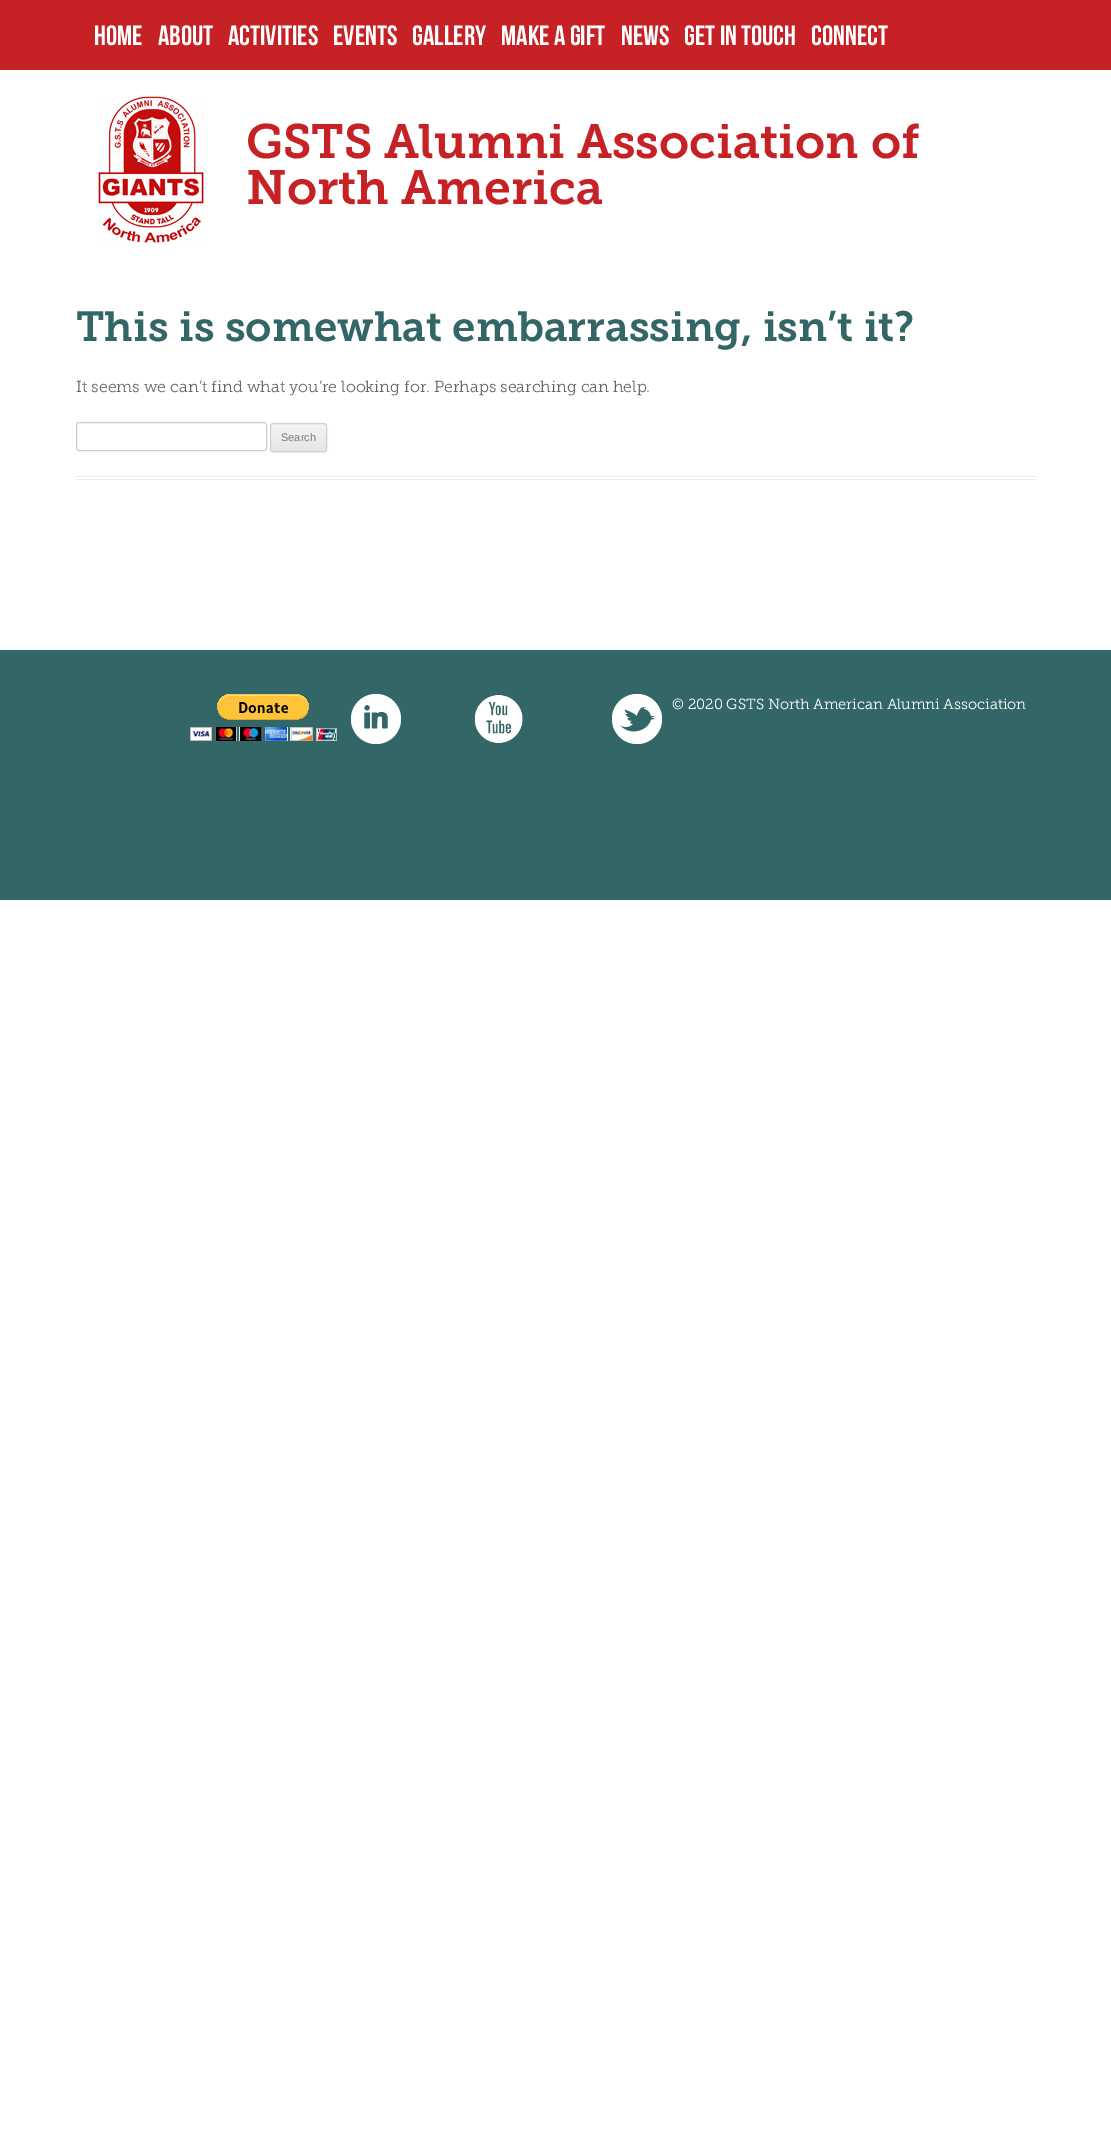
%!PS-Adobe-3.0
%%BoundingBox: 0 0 1111 2146
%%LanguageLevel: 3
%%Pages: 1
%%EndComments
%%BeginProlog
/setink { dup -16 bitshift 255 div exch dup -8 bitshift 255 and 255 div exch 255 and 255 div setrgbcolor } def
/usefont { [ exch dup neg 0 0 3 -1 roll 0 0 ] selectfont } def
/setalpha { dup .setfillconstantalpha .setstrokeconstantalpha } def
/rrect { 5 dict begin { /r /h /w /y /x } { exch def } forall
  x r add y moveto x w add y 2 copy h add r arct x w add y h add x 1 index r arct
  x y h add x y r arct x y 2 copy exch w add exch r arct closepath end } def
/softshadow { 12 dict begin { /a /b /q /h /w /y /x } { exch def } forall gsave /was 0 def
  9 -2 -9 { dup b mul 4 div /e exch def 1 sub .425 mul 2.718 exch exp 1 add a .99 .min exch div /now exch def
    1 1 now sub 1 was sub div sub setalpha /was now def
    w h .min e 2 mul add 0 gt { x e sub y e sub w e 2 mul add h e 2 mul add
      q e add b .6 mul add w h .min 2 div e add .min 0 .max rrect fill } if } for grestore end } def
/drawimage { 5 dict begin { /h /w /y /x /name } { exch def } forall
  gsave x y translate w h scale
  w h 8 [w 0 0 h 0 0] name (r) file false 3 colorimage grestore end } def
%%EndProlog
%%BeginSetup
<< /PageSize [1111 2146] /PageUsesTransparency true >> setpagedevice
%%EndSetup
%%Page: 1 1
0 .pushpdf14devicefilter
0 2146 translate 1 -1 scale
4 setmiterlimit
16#FFFFFF setink
0 0 1111 2146 rectfill
16#C62125 setink
0 0 1111 70 rectfill
/BebasNeue-Regular 28 usefont
16#FFFFFF setink
[
    [(HOME) 94 45]
    [(ABOUT) 158 45]
    [(ACTIVITIES) 228 45]
    [(EVENTS) 333 45]
    [(GALLERY) 412 45]
    [(MAKE A GIFT) 501 45]
    [(NEWS) 621 45]
    [(GET IN TOUCH) 684 45]
    [(CONNECT) 811 45]
] { aload pop moveto show } forall
(img1.raw) 98 96 106 147 drawimage
/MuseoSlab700-SemiBold 48 usefont
16#C62125 setink
246 158 moveto (GSTS Alumni Association of) show
246 204 moveto (North America) show
16#EDEDED setink
76 476 960 1 rectfill
76 479 960 1 rectfill
/MuseoSlab700-SemiBold 42 usefont
16#336666 setink
76 341 moveto (This is somewhat embarrassing, isn’t it?) show
/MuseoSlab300-Light 16 usefont
16#666666 setink
76 392 moveto (It seems we can’t find what you’re looking for. Perhaps searching can help.) show
16#CCCCCC setink
76.5 422.5 190 28 2.5 rrect stroke
16#404040 setink
270 424 57 29 3 1 0.1 softshadow
gsave
270 423 57 29 3 rrect clip newpath
gsave 270 424 moveto 327 424 lineto 327 451 lineto 270 451 lineto closepath clip newpath
<< /ShadingType 2 /ColorSpace /DeviceRGB /Coords [299 424 299 451] /Extend [true true] /Function << /FunctionType 2 /Domain [0 1] /C0 [0.957 0.957 0.957] /C1 [0.902 0.902 0.902] /N 1 >> >> shfill grestore
grestore
16#D2D2D2 setink
270.5 423.5 56 28 2.5 rrect stroke
/LiberationSans-Regular 11 usefont
16#7C7C7C setink
281 441 moveto (Search) show
16#336666 setink
0 650 1111 250 rectfill
(img2.raw) 190 694 147 47 drawimage
(img3.raw) 351 694 50 50 drawimage
(img4.raw) 474 695 49 48 drawimage
(img5.raw) 612 694 50 50 drawimage
/MuseoSlab300-Light 14.7 usefont
16#FFFFFF setink
672 709 moveto (© 2020 GSTS North American Alumni Association) show
.poppdf14devicefilter showpage
%%EOF
